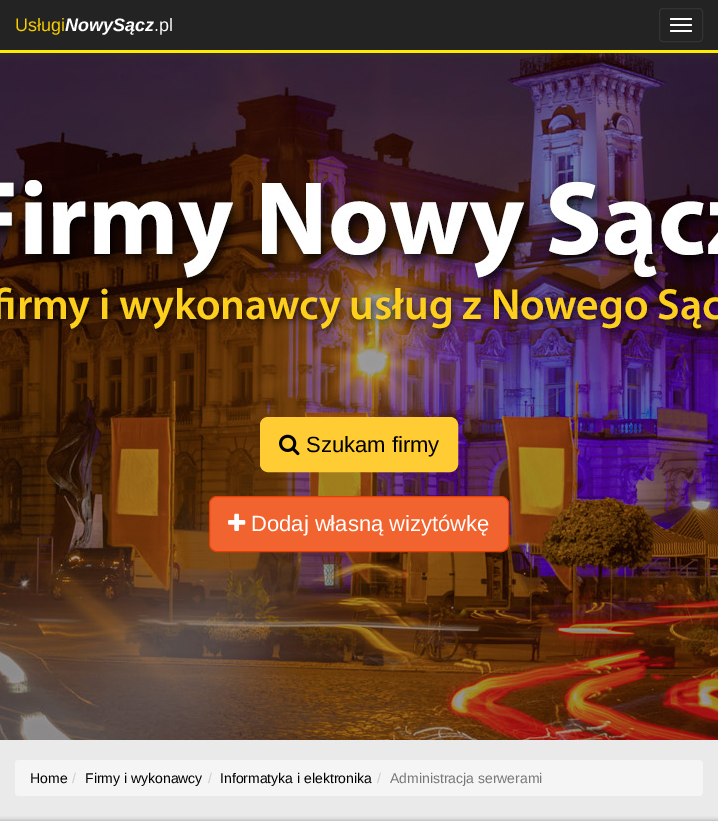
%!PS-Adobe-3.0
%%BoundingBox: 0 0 718 822
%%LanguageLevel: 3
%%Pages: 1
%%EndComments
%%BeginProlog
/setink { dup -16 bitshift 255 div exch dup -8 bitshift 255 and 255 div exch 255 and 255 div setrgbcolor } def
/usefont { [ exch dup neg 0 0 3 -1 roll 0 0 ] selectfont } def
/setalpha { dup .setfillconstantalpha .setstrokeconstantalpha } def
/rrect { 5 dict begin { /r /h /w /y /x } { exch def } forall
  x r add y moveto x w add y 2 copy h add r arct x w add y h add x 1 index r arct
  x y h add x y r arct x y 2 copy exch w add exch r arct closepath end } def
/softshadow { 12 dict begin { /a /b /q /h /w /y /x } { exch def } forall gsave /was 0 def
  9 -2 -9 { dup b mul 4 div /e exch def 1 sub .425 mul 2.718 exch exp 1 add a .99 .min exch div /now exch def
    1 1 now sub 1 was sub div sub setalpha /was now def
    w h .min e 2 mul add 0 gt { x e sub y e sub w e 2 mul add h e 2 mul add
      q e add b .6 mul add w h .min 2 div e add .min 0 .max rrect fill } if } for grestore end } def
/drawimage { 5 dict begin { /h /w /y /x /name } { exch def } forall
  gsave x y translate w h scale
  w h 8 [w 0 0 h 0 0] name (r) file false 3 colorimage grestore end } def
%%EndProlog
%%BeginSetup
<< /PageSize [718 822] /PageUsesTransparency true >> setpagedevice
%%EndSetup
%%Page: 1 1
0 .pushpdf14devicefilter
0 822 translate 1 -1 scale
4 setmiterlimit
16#EAEAEA setink
0 0 718 822 rectfill
(img1.raw) 0 53 718 687 drawimage
16#323232 setink
0 0 718 53 0 6.5 0.75 softshadow
16#232323 setink
0 0 718 50 rectfill
16#FDEB00 setink
0 50 718 3 rectfill
/LiberationSans-Regular 18 usefont
16#F9CE00 setink
15 31 moveto (Usługi) show
/LiberationSans-BoldItalic 18 usefont
16#FFFFFF setink
65 31 moveto (NowySącz) show
/LiberationSans-Regular 18 usefont
154 31 moveto (.pl) show
16#333333 setink
659.5 8.5 43 33 3.5 rrect stroke
16#FFFFFF setink
670 18 22 2 1 rrect fill
670 24 22 2 1 rrect fill
670 30 22 2 1 rrect fill
16#FFCC33 setink
260.5 417.5 197 54 7.5 rrect gsave fill grestore
stroke
(img2.raw) 279 434 21 22 drawimage
/LiberationSans-Regular 22 usefont
16#000000 setink
306 452 moveto (Szukam firmy) show
16#F2642F setink
209.5 496.5 299 55 7.5 rrect gsave fill grestore
16#E73F00 setink
stroke
(img3.raw) 228 513 18 18 drawimage
16#FFFFFF setink
251 531 moveto (Dodaj własną wizytówkę) show
16#F5F5F5 setink
15 760 688 36 4 rrect fill
/LiberationSans-Regular 14 usefont
16#000000 setink
30 783 moveto (Home) show
16#CCCCCC setink
72 783 moveto (/) show
16#000000 setink
85 783 moveto (Firmy i wykonawcy) show
16#CCCCCC setink
208 783 moveto (/) show
16#000000 setink
220 783 moveto (Informatyka i elektronika) show
16#CCCCCC setink
377 783 moveto (/) show
16#777777 setink
390 783 moveto (Administracja serwerami) show
16#000000 setink
0 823 718 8 0 3 0.75 softshadow
16#FFFFFF setink
0 821 718 1 rectfill
.poppdf14devicefilter showpage
%%EOF
